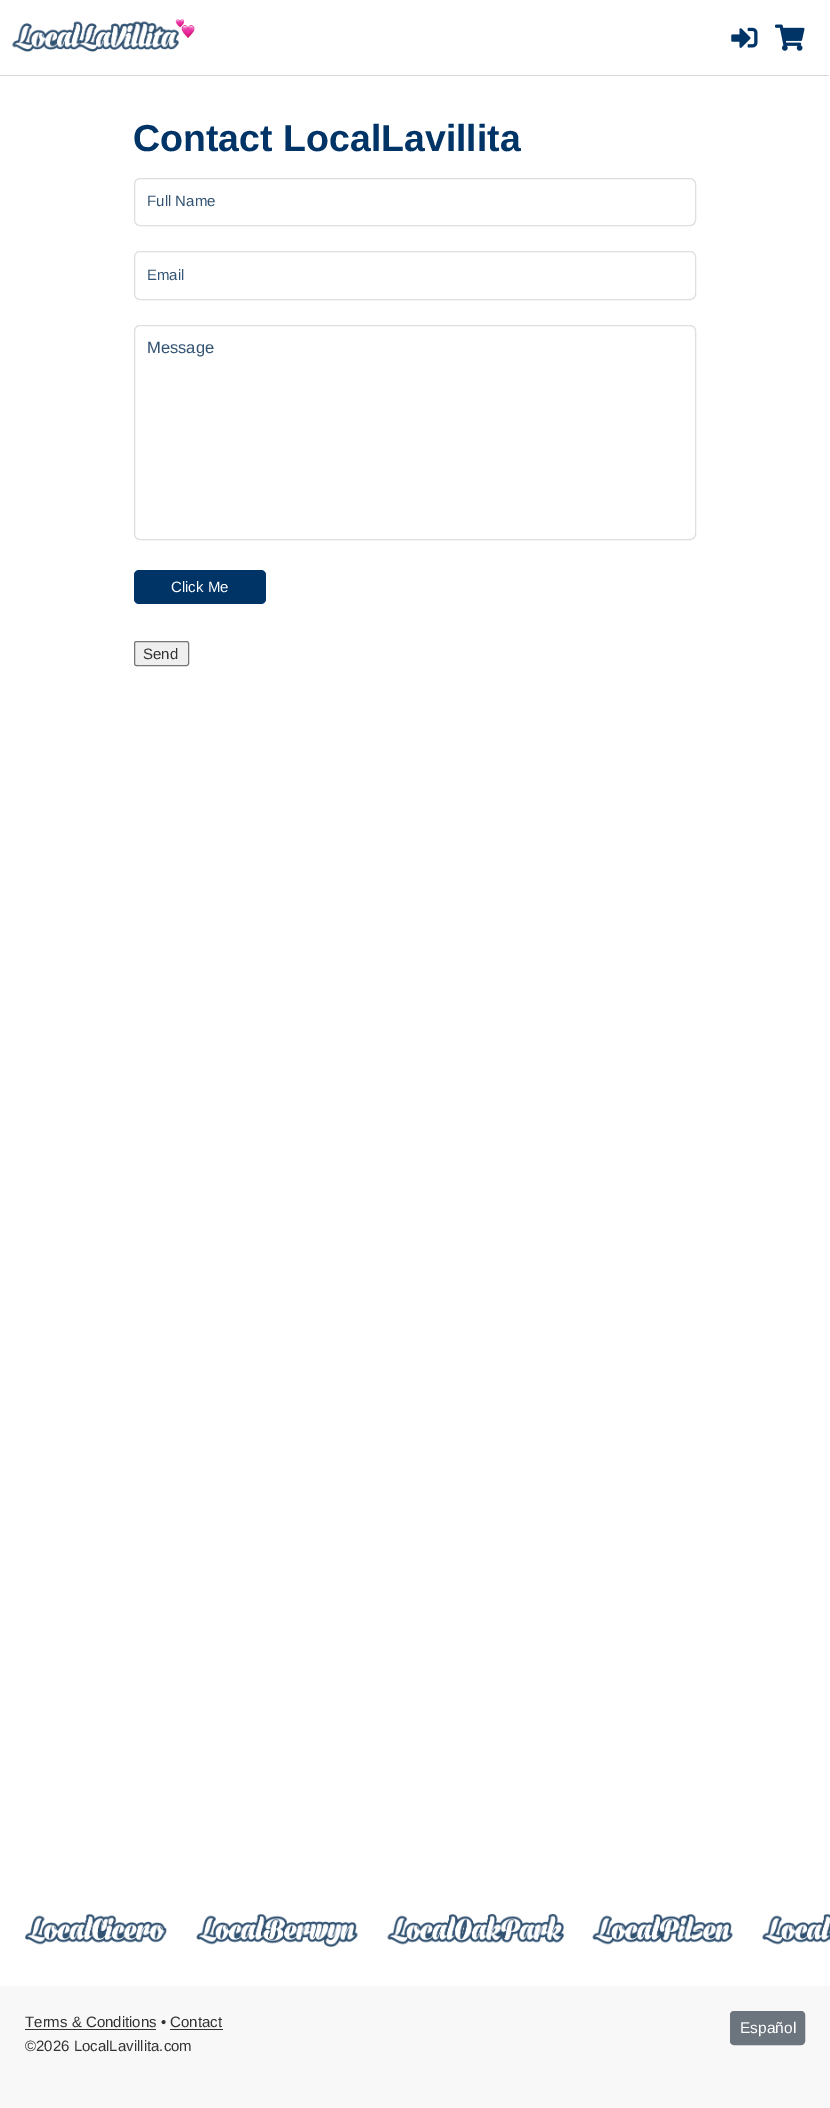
%!PS-Adobe-3.0
%%BoundingBox: 0 0 830 2108
%%LanguageLevel: 3
%%Pages: 1
%%EndComments
%%BeginProlog
/setink { dup -16 bitshift 255 div exch dup -8 bitshift 255 and 255 div exch 255 and 255 div setrgbcolor } def
/usefont { [ exch dup neg 0 0 3 -1 roll 0 0 ] selectfont } def
/rrect { 5 dict begin { /r /h /w /y /x } { exch def } forall
  x r add y moveto x w add y 2 copy h add r arct x w add y h add x 1 index r arct
  x y h add x y r arct x y 2 copy exch w add exch r arct closepath end } def
/drawimage { 5 dict begin { /h /w /y /x /name } { exch def } forall
  gsave x y translate w h scale
  w h 8 [w 0 0 h 0 0] name (r) file false 3 colorimage grestore end } def
%%EndProlog
%%BeginSetup
<< /PageSize [830 2108] >> setpagedevice
%%EndSetup
%%Page: 1 1
0 2108 translate 1 -1 scale
4 setmiterlimit
16#FFFFFF setink
0 0 830 2108 rectfill
(img1.raw) 12 21 167 31 drawimage
(img2.raw) 175 18 20 20 drawimage
(img3.raw) 731 27 27 21 drawimage
(img4.raw) 775 24 30 27 drawimage
16#D9D9D9 setink
0 75 829 1 rectfill
/LiberationSans-Bold 37.5 usefont
16#003366 setink
133 151 moveto (Contact LocalLavillita) show
16#DFDFDF setink
134.5 178.5 561 47 5.5 rrect stroke
/LiberationSans-Regular 15 usefont
16#325372 setink
147 206 moveto (Full Name) show
16#DFDFDF setink
134.5 251.5 561 48 5.5 rrect stroke
16#325372 setink
147 280 moveto (Email) show
16#DFDFDF setink
134.5 325.5 561 214 5.5 rrect stroke
/LiberationSans-Regular 16.5 usefont
16#325372 setink
147 353 moveto (Message) show
16#003366 setink
134 570 132 34 5 rrect fill
/LiberationSans-Regular 15 usefont
16#FFFFFF setink
171 592 moveto (Click Me) show
16#EFEFEF setink
134.5 641.5 54 24 2 rrect gsave fill grestore
16#767676 setink
stroke
16#333333 setink
143 659 moveto (Send) show
(img5.raw) 25 1914 142 31 drawimage
(img6.raw) 196 1914 162 33 drawimage
(img7.raw) 387 1914 177 31 drawimage
(img8.raw) 592 1914 141 31 drawimage
(img9.raw) 762 1914 68 31 drawimage
16#F8F8F8 setink
0 1986 830 122 rectfill
16#333333 setink
25 2027 moveto (Terms & Conditions • Contact) show
25 2029 131 1 rectfill
16#6C757D setink
730.5 2011.5 74 33 3.5 rrect gsave fill grestore
stroke
/LiberationSans-Regular 15.5 usefont
16#FFFFFF setink
740 2033 moveto (Español) show
16#333333 setink
170 2029 53 1 rectfill
/LiberationSans-Regular 15 usefont
25 2051 moveto (©2026 LocalLavillita.com) show
showpage
%%EOF
